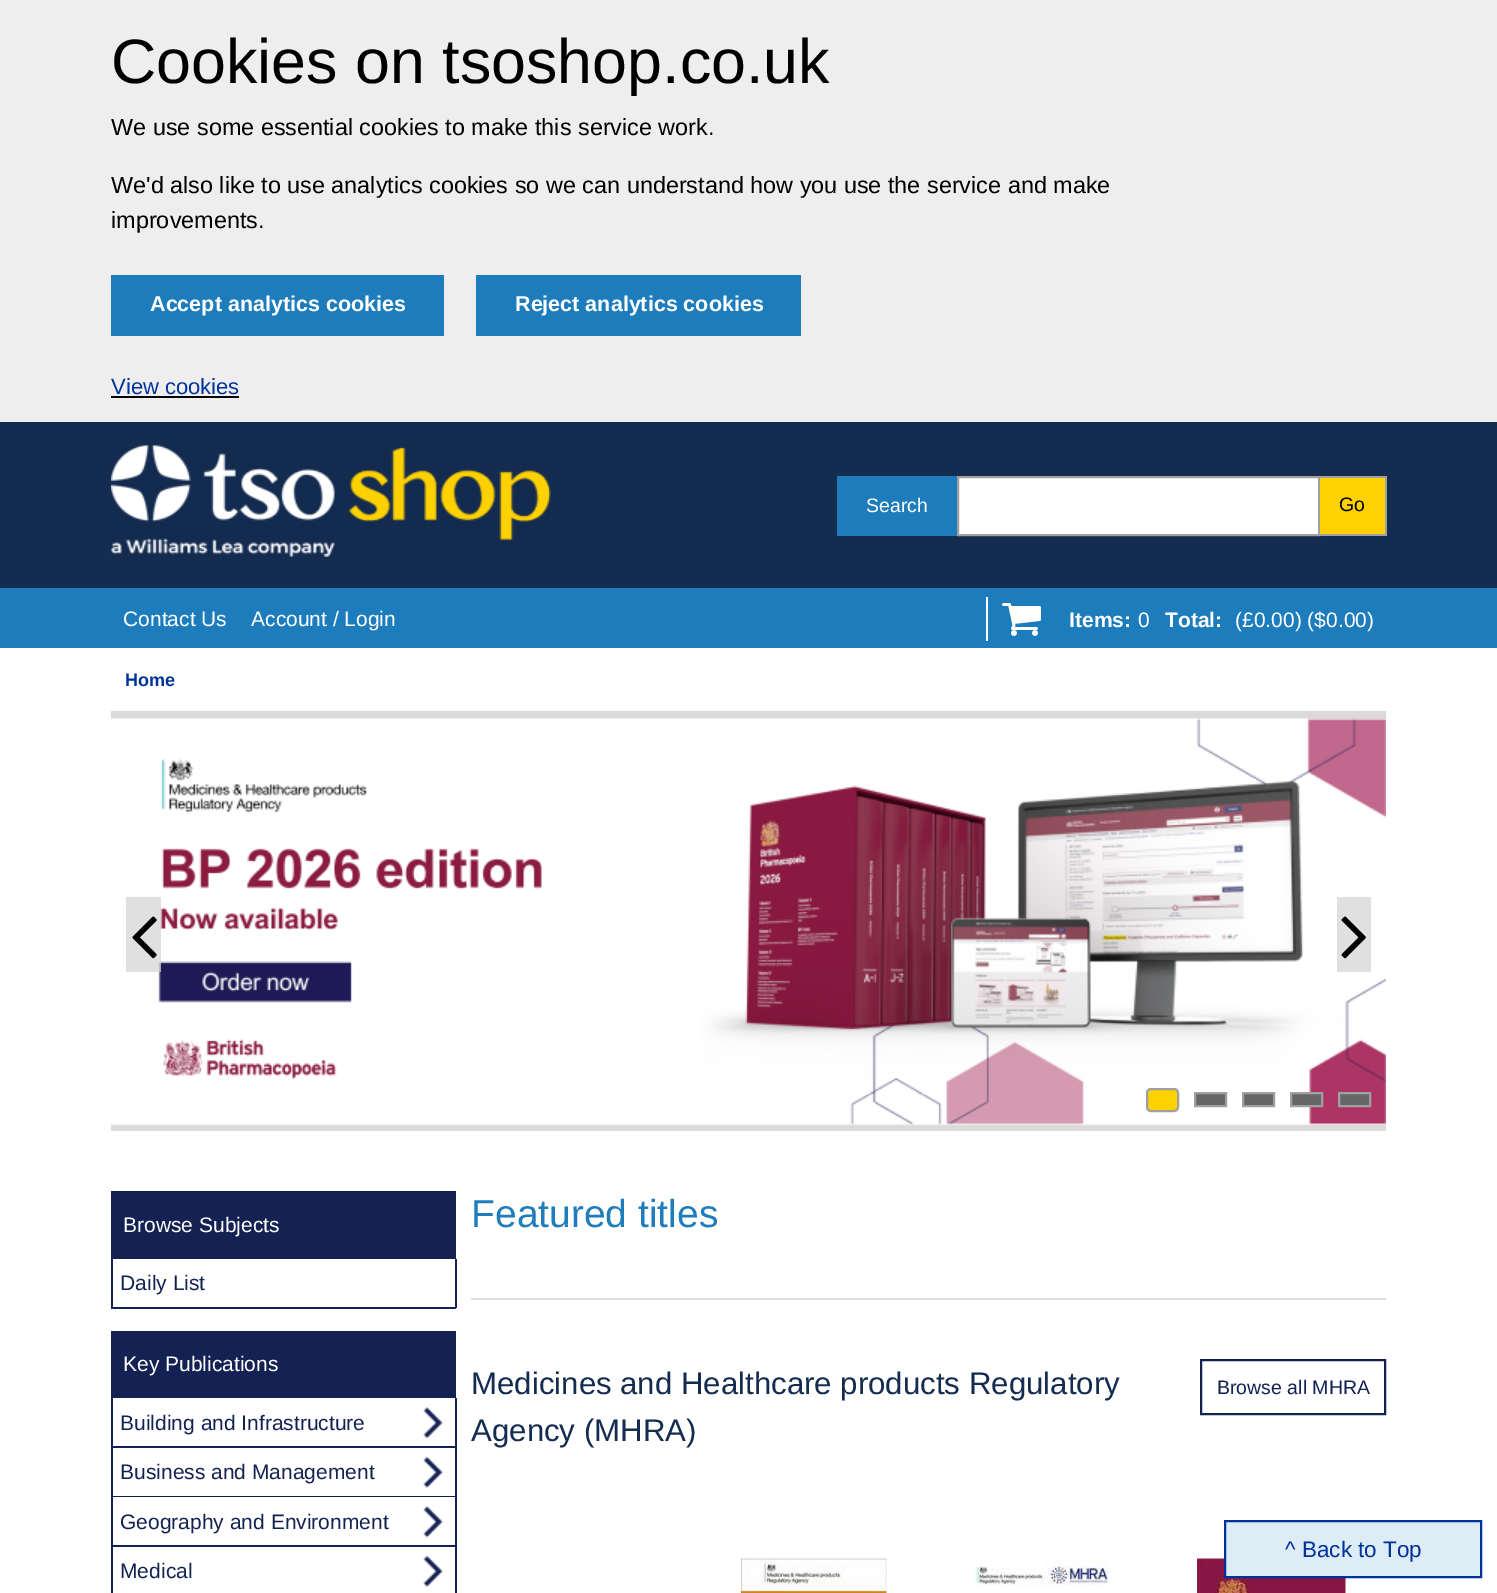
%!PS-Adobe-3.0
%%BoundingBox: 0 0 1497 1593
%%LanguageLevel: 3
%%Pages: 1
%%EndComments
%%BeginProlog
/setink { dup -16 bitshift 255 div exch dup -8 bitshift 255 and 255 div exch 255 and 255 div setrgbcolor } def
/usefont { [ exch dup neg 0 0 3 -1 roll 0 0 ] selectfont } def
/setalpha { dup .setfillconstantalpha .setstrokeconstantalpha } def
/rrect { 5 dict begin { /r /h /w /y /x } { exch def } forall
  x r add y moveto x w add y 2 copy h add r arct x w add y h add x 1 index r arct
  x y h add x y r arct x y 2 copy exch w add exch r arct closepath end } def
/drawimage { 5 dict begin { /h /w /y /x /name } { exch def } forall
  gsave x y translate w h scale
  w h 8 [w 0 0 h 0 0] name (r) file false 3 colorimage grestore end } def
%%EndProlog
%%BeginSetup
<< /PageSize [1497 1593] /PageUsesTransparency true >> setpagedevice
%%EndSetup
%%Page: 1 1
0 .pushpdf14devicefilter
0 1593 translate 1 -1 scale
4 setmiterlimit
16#FFFFFF setink
0 0 1497 1593 rectfill
16#EEEEEE setink
0 0 1497 422 rectfill
/LiberationSans-Regular 62.75 usefont
16#000000 setink
111 83 moveto (Cookies on tsoshop.co.uk) show
/LiberationSans-Regular 23.4 usefont
[
    [(We use some essential cookies to make this service work.) 111 135]
    [(We'd also like to use analytics cookies so we can understand how you use the service and make) 111 193]
    [(improvements.) 111 228]
] { aload pop moveto show } forall
16#1C7CBC setink
111 275 333 61 rectfill
/LiberationSans-Bold 21.5 usefont
16#FFFFFF setink
150 311 moveto (Accept analytics cookies) show
16#1C7CBC setink
476 275 325 61 rectfill
16#FFFFFF setink
515 311 moveto (Reject analytics cookies) show
/LiberationSans-Regular 22 usefont
16#003399 setink
111 394 moveto (View cookies) show
16#000000 setink
111 396 128 2 rectfill
16#152C51 setink
0 422 1497 166 rectfill
(img1.raw) 111 445 440 112 drawimage
16#1C7CBC setink
837 476 120 60 rectfill
/LiberationSans-Regular 19.5 usefont
16#FFFFFF setink
866 512 moveto (Search) show
958 477 moveto 1319 477 lineto 1319 535 lineto 958 535 lineto closepath gsave fill grestore
16#A0A0A0 setink
2 setlinewidth
stroke
[
    [1320 478 65 56 16#FED100]
    [1320 476 66 2 16#A0A0A0]
    [1385 476 2 60 16#A0A0A0]
    [1320 534 66 2 16#A0A0A0]
] { aload pop setink rectfill } forall
16#000000 setink
1339 511 moveto (Go) show
16#1C7CBC setink
0 588 1497 60 rectfill
/LiberationSans-Regular 21 usefont
16#FFFFFF setink
123 626 moveto (Contact Us) show
251 626 moveto (Account / Login) show
986 597 2 44 rectfill
(img2.raw) 1002 603 39 33 drawimage
/LiberationSans-Bold 21 usefont
1069 627 moveto (Items:) show
/LiberationSans-Regular 21 usefont
1138 627 moveto (0) show
/LiberationSans-Bold 21 usefont
1165 627 moveto (Total:) show
/LiberationSans-Regular 21 usefont
1235 627 moveto (\(£0.00\) \($0.00\)) show
/LiberationSans-Bold 18 usefont
16#003399 setink
125 686 moveto (Home) show
(img3.raw) 111 711 1275 420 drawimage
0.7 setalpha
16#D3D3D3 setink
126 897 35 75 rectfill
1 setalpha
(img4.raw) 132 916 25 43 drawimage
16#E0E0E0 setink
1337 897 34 75 rectfill
(img5.raw) 1341 916 25 43 drawimage
16#FED100 setink
1147 1089 31 22 4 rrect gsave fill grestore
16#A0A0A0 setink
stroke
16#666666 setink
1195 1093 moveto 1226 1093 lineto 1226 1106 lineto 1195 1106 lineto closepath gsave fill grestore
16#A0A0A0 setink
stroke
16#666666 setink
1243 1093 moveto 1274 1093 lineto 1274 1106 lineto 1243 1106 lineto closepath gsave fill grestore
16#A0A0A0 setink
stroke
16#666666 setink
1291 1093 moveto 1322 1093 lineto 1322 1106 lineto 1291 1106 lineto closepath gsave fill grestore
16#A0A0A0 setink
stroke
16#666666 setink
1339 1093 moveto 1370 1093 lineto 1370 1106 lineto 1339 1106 lineto closepath gsave fill grestore
16#A0A0A0 setink
stroke
16#142153 setink
111 1191 345 68 rectfill
/LiberationSans-Regular 21 usefont
16#FFFFFF setink
123 1232 moveto (Browse Subjects) show
[
    [455 1259 2 49 16#142153]
    [111 1307 345 2 16#142153]
    [111 1259 2 49 16#142153]
] { aload pop setink rectfill } forall
120 1290 moveto (Daily List) show
111 1331 345 67 rectfill
16#FFFFFF setink
123 1371 moveto (Key Publications) show
(img6.raw) 423 1407 20 32 drawimage
[
    [455 1398 2 195 16#142153]
    [111 1446 345 2 16#142153]
    [111 1398 2 50 16#142153]
] { aload pop setink rectfill } forall
120 1430 moveto (Building and Infrastructure) show
(img7.raw) 423 1456 20 32 drawimage
111 1496 345 1 rectfill
111 1448 2 49 rectfill
120 1479 moveto (Business and Management) show
(img6.raw) 423 1506 20 32 drawimage
111 1545 345 2 rectfill
111 1497 2 96 rectfill
120 1529 moveto (Geography and Environment) show
(img7.raw) 423 1555 20 32 drawimage
120 1578 moveto (Medical) show
16#DDDDDD setink
471 1298 915 2 rectfill
/LiberationSans-Regular 39 usefont
16#1F7DBD setink
471 1227 moveto (Featured titles) show
/LiberationSans-Regular 31.2 usefont
16#152C51 setink
471 1394 moveto (Medicines and Healthcare products Regulatory) show
471 1441 moveto (Agency \(MHRA\)) show
16#142153 setink
1201 1360 184 54 rectstroke
/LiberationSans-Regular 19.5 usefont
1217 1394 moveto (Browse all MHRA) show
(img8.raw) 741 1558 146 35 drawimage
(img9.raw) 973 1558 136 29 drawimage
(img10.raw) 1197 1558 149 35 drawimage
16#DEECF5 setink
1225 1521 moveto 1481 1521 lineto 1481 1577 lineto 1225 1577 lineto closepath gsave fill grestore
16#003399 setink
stroke
/LiberationSans-Regular 22.5 usefont
1285 1557 moveto (^ Back to Top) show
.poppdf14devicefilter showpage
%%EOF
